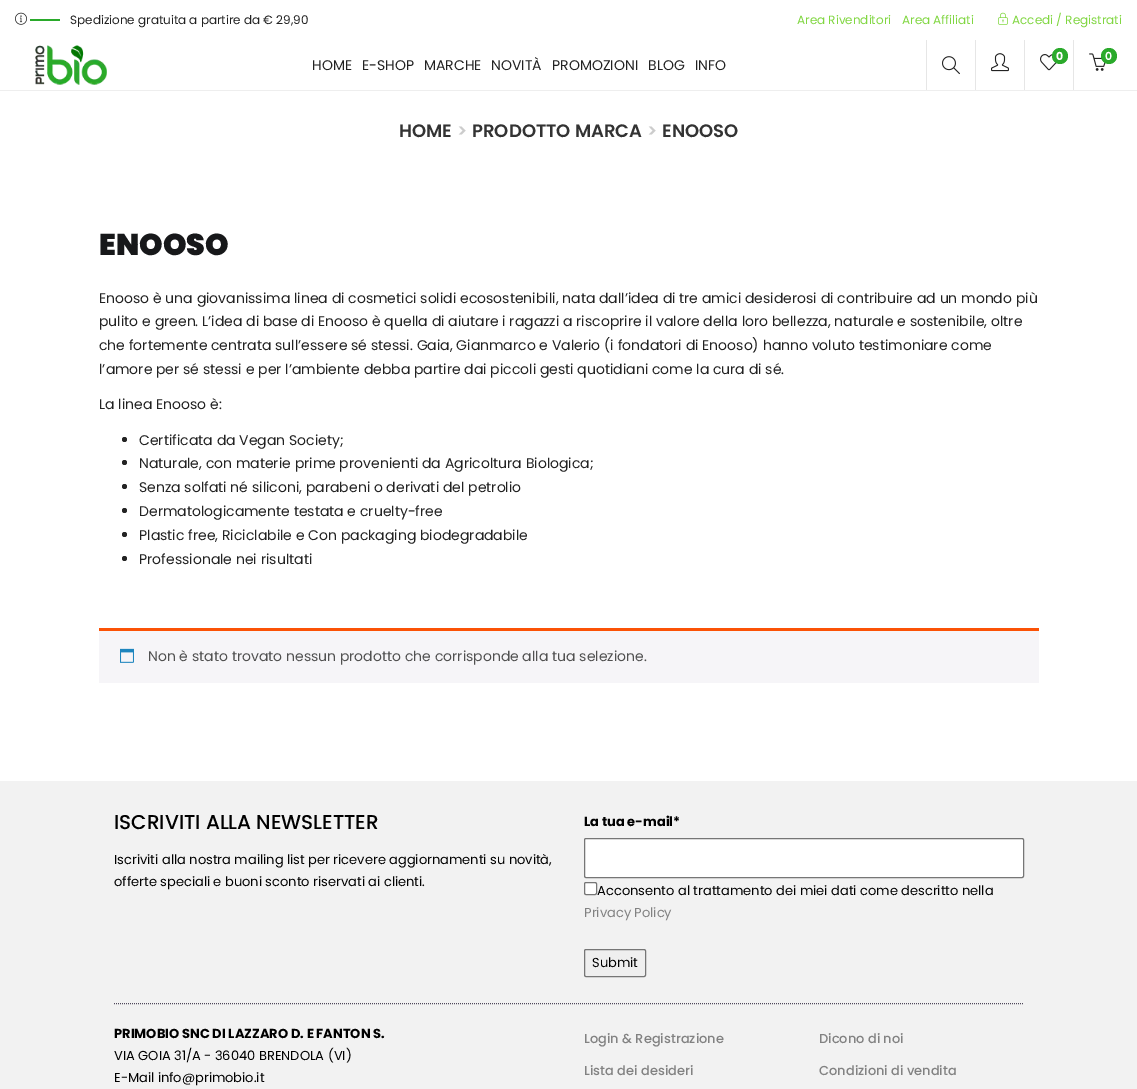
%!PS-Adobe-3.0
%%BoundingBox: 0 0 1137 1089
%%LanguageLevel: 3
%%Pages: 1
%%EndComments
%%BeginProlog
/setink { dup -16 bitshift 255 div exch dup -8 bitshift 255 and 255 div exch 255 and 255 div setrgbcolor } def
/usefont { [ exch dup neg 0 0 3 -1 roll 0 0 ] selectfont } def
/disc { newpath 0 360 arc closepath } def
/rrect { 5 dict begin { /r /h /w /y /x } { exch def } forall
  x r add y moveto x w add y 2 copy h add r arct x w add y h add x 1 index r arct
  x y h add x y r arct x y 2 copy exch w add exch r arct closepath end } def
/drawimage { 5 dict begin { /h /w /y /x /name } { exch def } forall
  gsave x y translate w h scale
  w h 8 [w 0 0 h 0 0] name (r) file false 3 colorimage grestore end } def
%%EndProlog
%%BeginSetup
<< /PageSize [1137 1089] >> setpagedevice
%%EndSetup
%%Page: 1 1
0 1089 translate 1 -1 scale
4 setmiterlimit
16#FFFFFF setink
0 0 1137 1089 rectfill
(img1.raw) 15 12 12 13 drawimage
16#2AAA2B setink
30 19 30 2 rectfill
/Poppins-Regular 12 usefont
16#222222 setink
70 24 moveto (Spedizione gratuita a partire da € 29,90) show
16#81D742 setink
797 24 moveto (Area Rivenditori) show
902 24 moveto (Area Affiliati) show
(img2.raw) 998 12 10 13 drawimage
1012 24 moveto (Accedi / Registrati) show
(img3.raw) 35 45 72 40 drawimage
16#E6E6E6 setink
926 40 1 50 rectfill
(img4.raw) 942 56 18 19 drawimage
975 40 1 50 rectfill
(img5.raw) 991 53 18 19 drawimage
1024 40 1 50 rectfill
(img6.raw) 1040 54 17 17 drawimage
16#2AAA2B setink
1060 56 8 disc fill
/Poppins-Bold 11 usefont
16#FFFFFF setink
1056 60 moveto (0) show
16#E6E6E6 setink
1073 40 1 50 rectfill
(img7.raw) 1089 53 17 18 drawimage
16#2AAA2B setink
1109 56 8 disc fill
/Poppins-SemiBold 11 usefont
16#FFFFFF setink
1105 60 moveto (0) show
/Poppins-Regular 14 usefont
16#222222 setink
[
    [(HOME) 312 70]
    [(E-SHOP) 362 70]
    [(MARCHE) 424 70]
    [(NOVITÀ) 491 70]
    [(PROMOZIONI) 552 70]
    [(BLOG) 648 70]
    [(INFO) 695 70]
] { aload pop moveto show } forall
16#EEEEEE setink
0 90 1137 1 rectfill
/Poppins-SemiBold 18 usefont
16#333333 setink
399 137 moveto (HOME) show
16#CCCCCC setink
457 137 moveto (>) show
16#333333 setink
472 137 moveto (PRODOTTO MARCA) show
16#CCCCCC setink
647 137 moveto (>) show
16#333333 setink
662 137 moveto (ENOOSO) show
/Poppins-Black 30 usefont
16#17181A setink
99 255 moveto (ENOOSO) show
/Poppins-Regular 14 usefont
16#222222 setink
[
    [(Enooso è una giovanissima linea di cosmetici solidi ecosostenibili, nata dall’idea di tre amici desiderosi di contribuire ad un mondo più) 99 303]
    [(pulito e green. L’idea di base di Enooso è quella di aiutare i ragazzi a riscoprire il valore della loro bellezza, naturale e sostenibile, oltre) 99 326]
    [(che fortemente centrata sull’essere sé stessi. Gaia, Gianmarco e Valerio \(i fondatori di Enooso\) hanno voluto testimoniare come) 99 350]
    [(l’amore per sé stessi e per l’ambiente debba partire dai piccoli gesti quotidiani come la cura di sé.) 99 374]
    [(La linea Enooso è:) 99 409]
] { aload pop moveto show } forall
16#232323 setink
124.5 439.5 2.5 disc fill
16#222222 setink
139 445 moveto (Certificata da Vegan Society;) show
16#232323 setink
124.5 462.5 2.5 disc fill
16#222222 setink
139 468 moveto (Naturale, con materie prime provenienti da Agricoltura Biologica;) show
16#232323 setink
124.5 486.5 2.5 disc fill
16#222222 setink
139 492 moveto (Senza solfati né siliconi, parabeni o derivati del petrolio) show
16#232323 setink
124.5 510.5 2.5 disc fill
16#222222 setink
139 516 moveto (Dermatologicamente testata e cruelty-free) show
16#232323 setink
124.5 534.5 2.5 disc fill
16#222222 setink
139 540 moveto (Plastic free, Riciclabile e Con packaging biodegradabile) show
16#232323 setink
124.5 558.5 2.5 disc fill
16#222222 setink
139 564 moveto (Professionale nei risultati) show
16#F6F5F8 setink
99 631 940 52 rectfill
16#FB5206 setink
99 628 940 3 rectfill
(img8.raw) 120 648 14 15 drawimage
16#515151 setink
148 661 moveto (Non è stato trovato nessun prodotto che corrisponde alla tua selezione.) show
16#F2F2F2 setink
0 781 1137 308 rectfill
/Poppins-Medium 20 usefont
16#000000 setink
114 829 moveto (ISCRIVITI ALLA NEWSLETTER) show
/Poppins-Regular 13 usefont
114 864 moveto (Iscriviti alla nostra mailing list per ricevere aggiornamenti su novità,) show
114 886 moveto (offerte speciali e buoni sconto riservati ai clienti.) show
/Poppins-Bold 13 usefont
584 826 moveto (La tua e-mail*) show
16#FFFFFF setink
584.5 838.5 439 39 1.5 rrect gsave fill grestore
16#767676 setink
stroke
16#FFFFFF setink
584.5 882.5 12 12 1.5 rrect gsave fill grestore
16#767676 setink
stroke
/Poppins-Regular 13 usefont
16#000000 setink
597 895 moveto (Acconsento al trattamento dei miei dati come descritto nella) show
16#828282 setink
584 917 moveto (Privacy Policy) show
16#EFEFEF setink
584.5 949.5 61 27 1.5 rrect gsave fill grestore
16#767676 setink
stroke
16#000000 setink
592 967 moveto (Submit) show
16#50485B setink
[1 1] 0 setdash
114 1003.5 moveto 1024 1003.5 lineto stroke
/Poppins-Bold 13 usefont
16#000000 setink
114 1038 moveto (PRIMOBIO SNC DI LAZZARO D. E FANTON S.) show
/Poppins-Regular 13 usefont
114 1060 moveto (VIA GOIA 31/A - 36040 BRENDOLA \(VI\)) show
114 1082 moveto (E-Mail info@primobio.it) show
/Poppins-Medium 13 usefont
16#828282 setink
[
    [(Login & Registrazione) 584 1043]
    [(Lista dei desideri) 584 1075]
    [(Dicono di noi) 819 1043]
    [(Condizioni di vendita) 819 1075]
] { aload pop moveto show } forall
showpage
%%EOF
